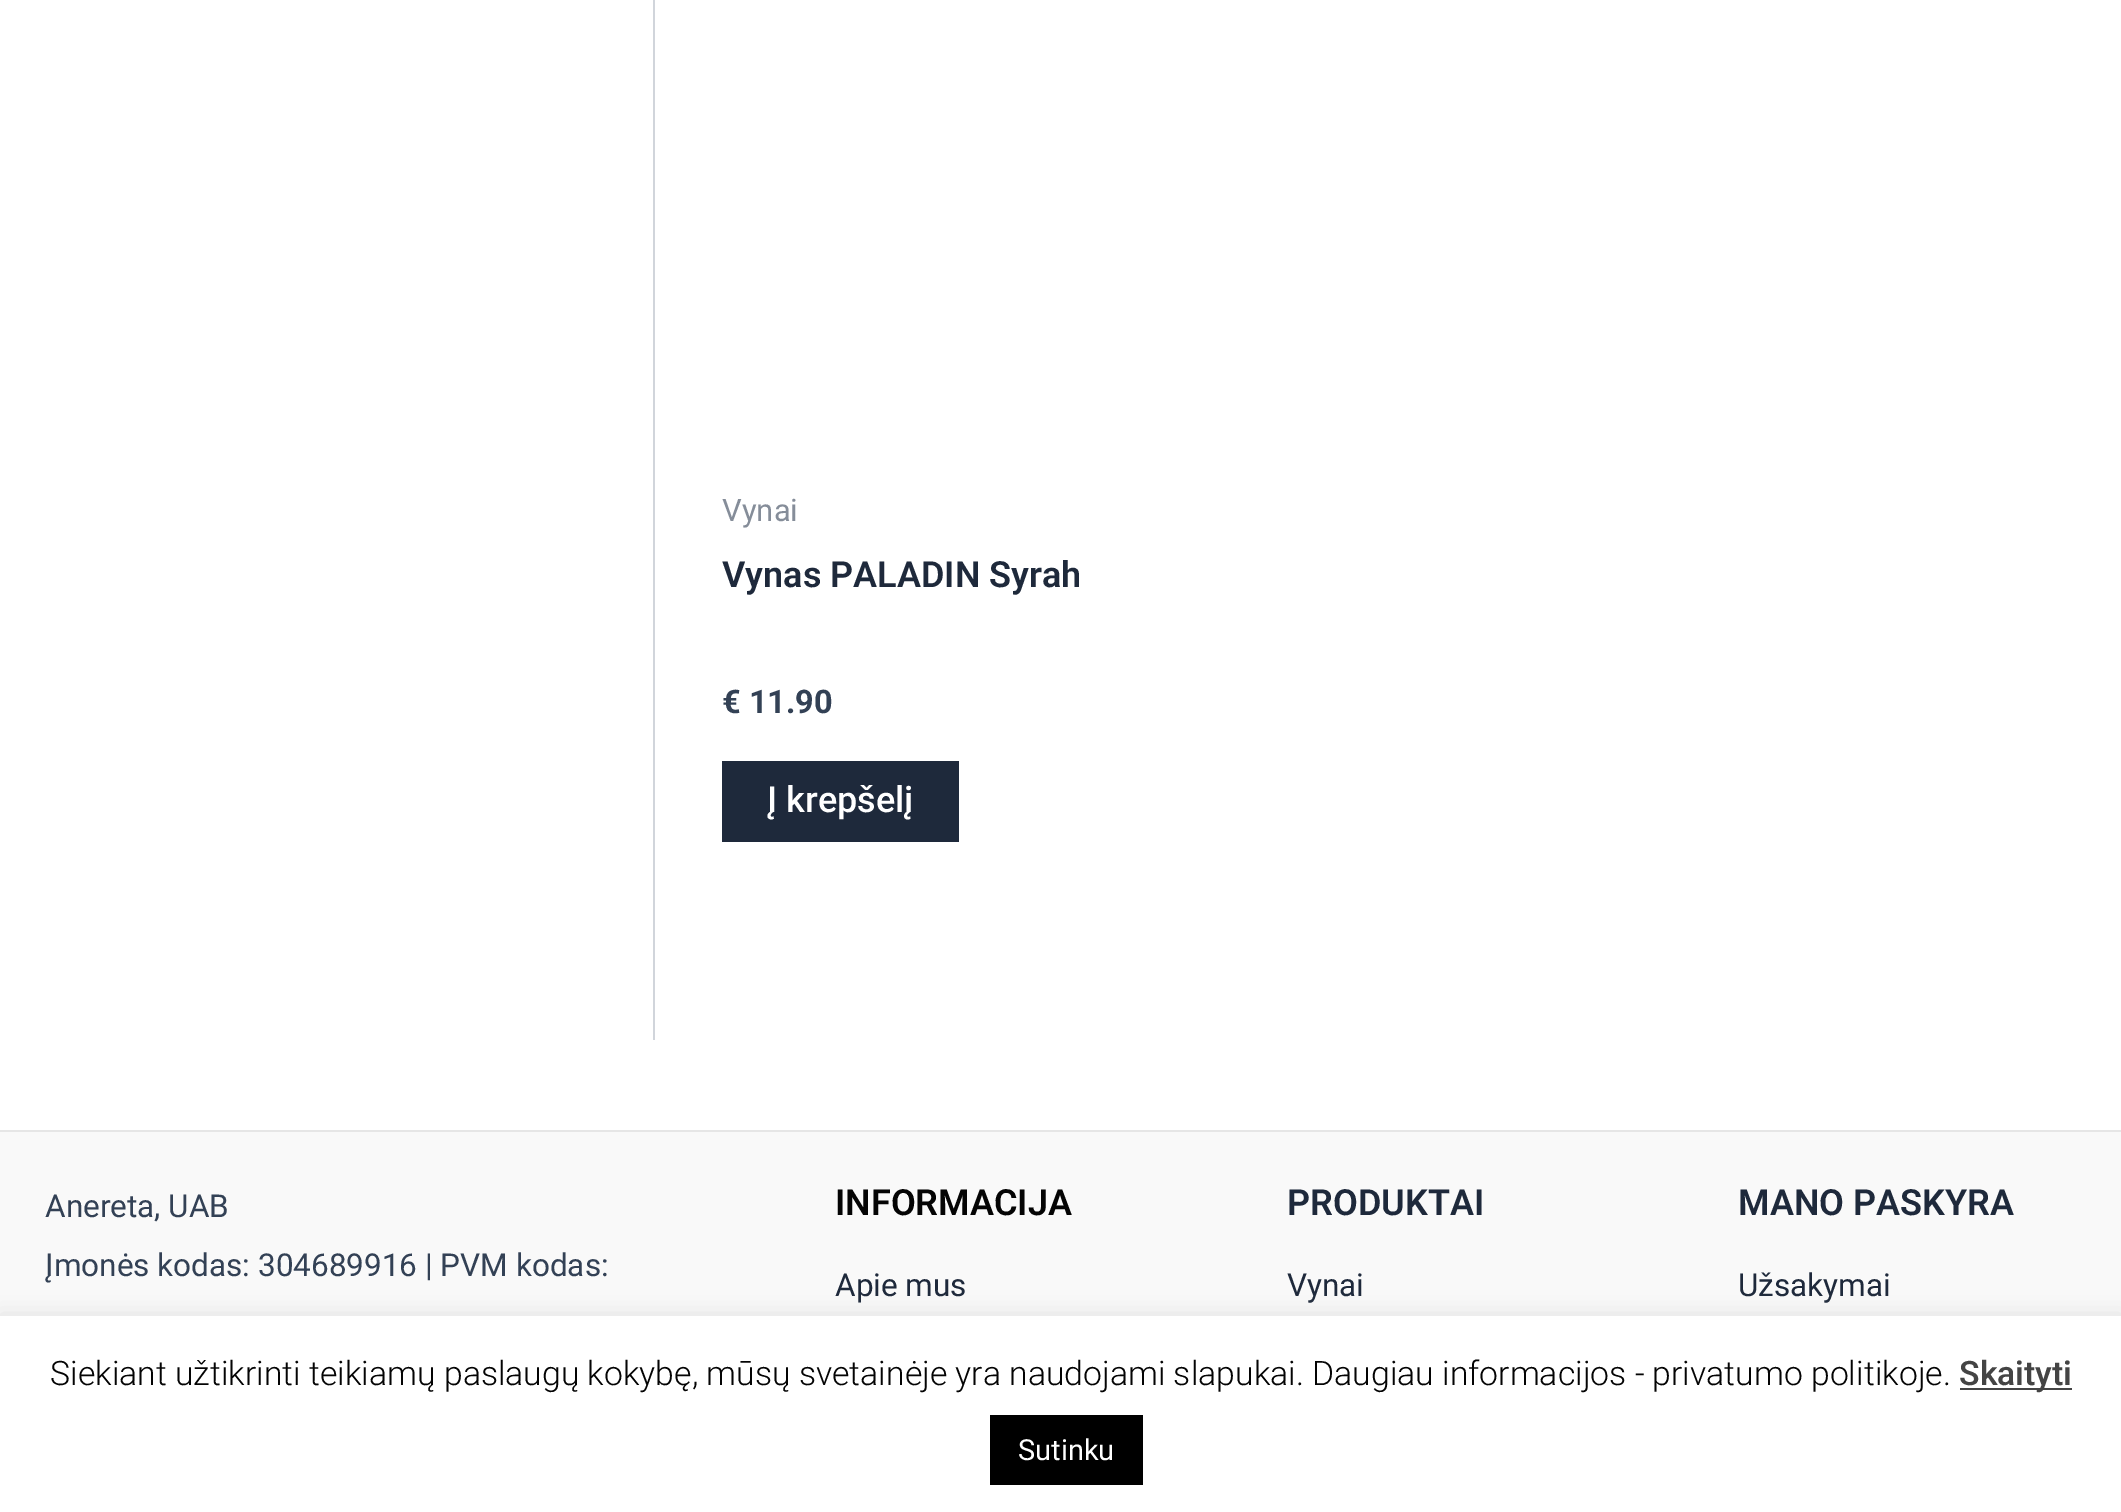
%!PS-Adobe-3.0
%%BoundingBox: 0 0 2121 1512
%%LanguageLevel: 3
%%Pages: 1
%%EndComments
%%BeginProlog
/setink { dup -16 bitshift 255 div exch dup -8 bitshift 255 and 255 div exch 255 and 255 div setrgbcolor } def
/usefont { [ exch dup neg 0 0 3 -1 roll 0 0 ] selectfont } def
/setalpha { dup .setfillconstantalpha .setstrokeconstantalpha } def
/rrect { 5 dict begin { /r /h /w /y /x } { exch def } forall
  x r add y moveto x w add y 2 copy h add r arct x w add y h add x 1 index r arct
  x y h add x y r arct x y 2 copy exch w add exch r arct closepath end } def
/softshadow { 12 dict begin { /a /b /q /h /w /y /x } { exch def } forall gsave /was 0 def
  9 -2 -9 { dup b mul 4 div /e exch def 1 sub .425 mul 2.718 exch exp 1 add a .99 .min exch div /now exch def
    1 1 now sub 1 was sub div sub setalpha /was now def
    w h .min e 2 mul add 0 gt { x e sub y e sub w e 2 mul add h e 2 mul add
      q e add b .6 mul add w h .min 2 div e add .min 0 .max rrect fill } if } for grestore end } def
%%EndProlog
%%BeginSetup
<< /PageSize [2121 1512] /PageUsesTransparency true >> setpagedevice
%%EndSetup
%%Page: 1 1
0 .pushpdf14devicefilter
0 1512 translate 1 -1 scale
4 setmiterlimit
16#FFFFFF setink
0 0 2121 1512 rectfill
16#D1D5DB setink
653 0 2 1040 rectfill
/Roboto-Regular 31 usefont
16#858D99 setink
722 521 moveto (Vynai) show
/Roboto-SemiBold 36 usefont
16#1E293B setink
722 587 moveto (Vynas PALADIN Syrah) show
/Roboto-Bold 32.5 usefont
16#334155 setink
722 713 moveto (€ 11.90) show
16#1E293B setink
722 761 237 81 rectfill
/Roboto-Medium 36 usefont
16#FFFFFF setink
767 812 moveto (Į krepšelį) show
16#F9F9F9 setink
0 1132 2121 184 rectfill
16#E6E6E6 setink
0 1130 2121 2 rectfill
/Roboto-Regular 31.5 usefont
16#334155 setink
45 1217 moveto (Anereta, UAB) show
45 1276 moveto (Įmonės kodas: 304689916 | PVM kodas:) show
/Roboto-SemiBold 36 usefont
16#040404 setink
835 1215 moveto (INFORMACIJA) show
/Roboto-Regular 31.5 usefont
16#1E293B setink
835 1296 moveto (Apie mus) show
/Roboto-SemiBold 36 usefont
1287 1215 moveto (PRODUKTAI) show
/Roboto-Regular 31.5 usefont
1287 1296 moveto (Vynai) show
/Roboto-SemiBold 36 usefont
1738 1215 moveto (MANO PASKYRA) show
/Roboto-Regular 31.5 usefont
1738 1296 moveto (Užsakymai) show
16#ACABAB setink
0 1314 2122 196 0 11 0.3 softshadow
16#FFFFFF setink
0 1316 2121 196 rectfill
/Roboto-Light 33.75 usefont
16#040404 setink
50 1385 moveto (Siekiant užtikrinti teikiamų paslaugų kokybę, mūsų svetainėje yra naudojami slapukai. Daugiau informacijos - privatumo politikoje.) show
16#444444 setink
1960 1388 112 2 rectfill
/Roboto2-Medium 33.75 usefont
1959 1385 moveto (Skaityti) show
16#000000 setink
990 1415 153 70 rectfill
/Roboto-Regular 29 usefont
16#FFFFFF setink
1018 1460 moveto (Sutinku) show
.poppdf14devicefilter showpage
%%EOF
